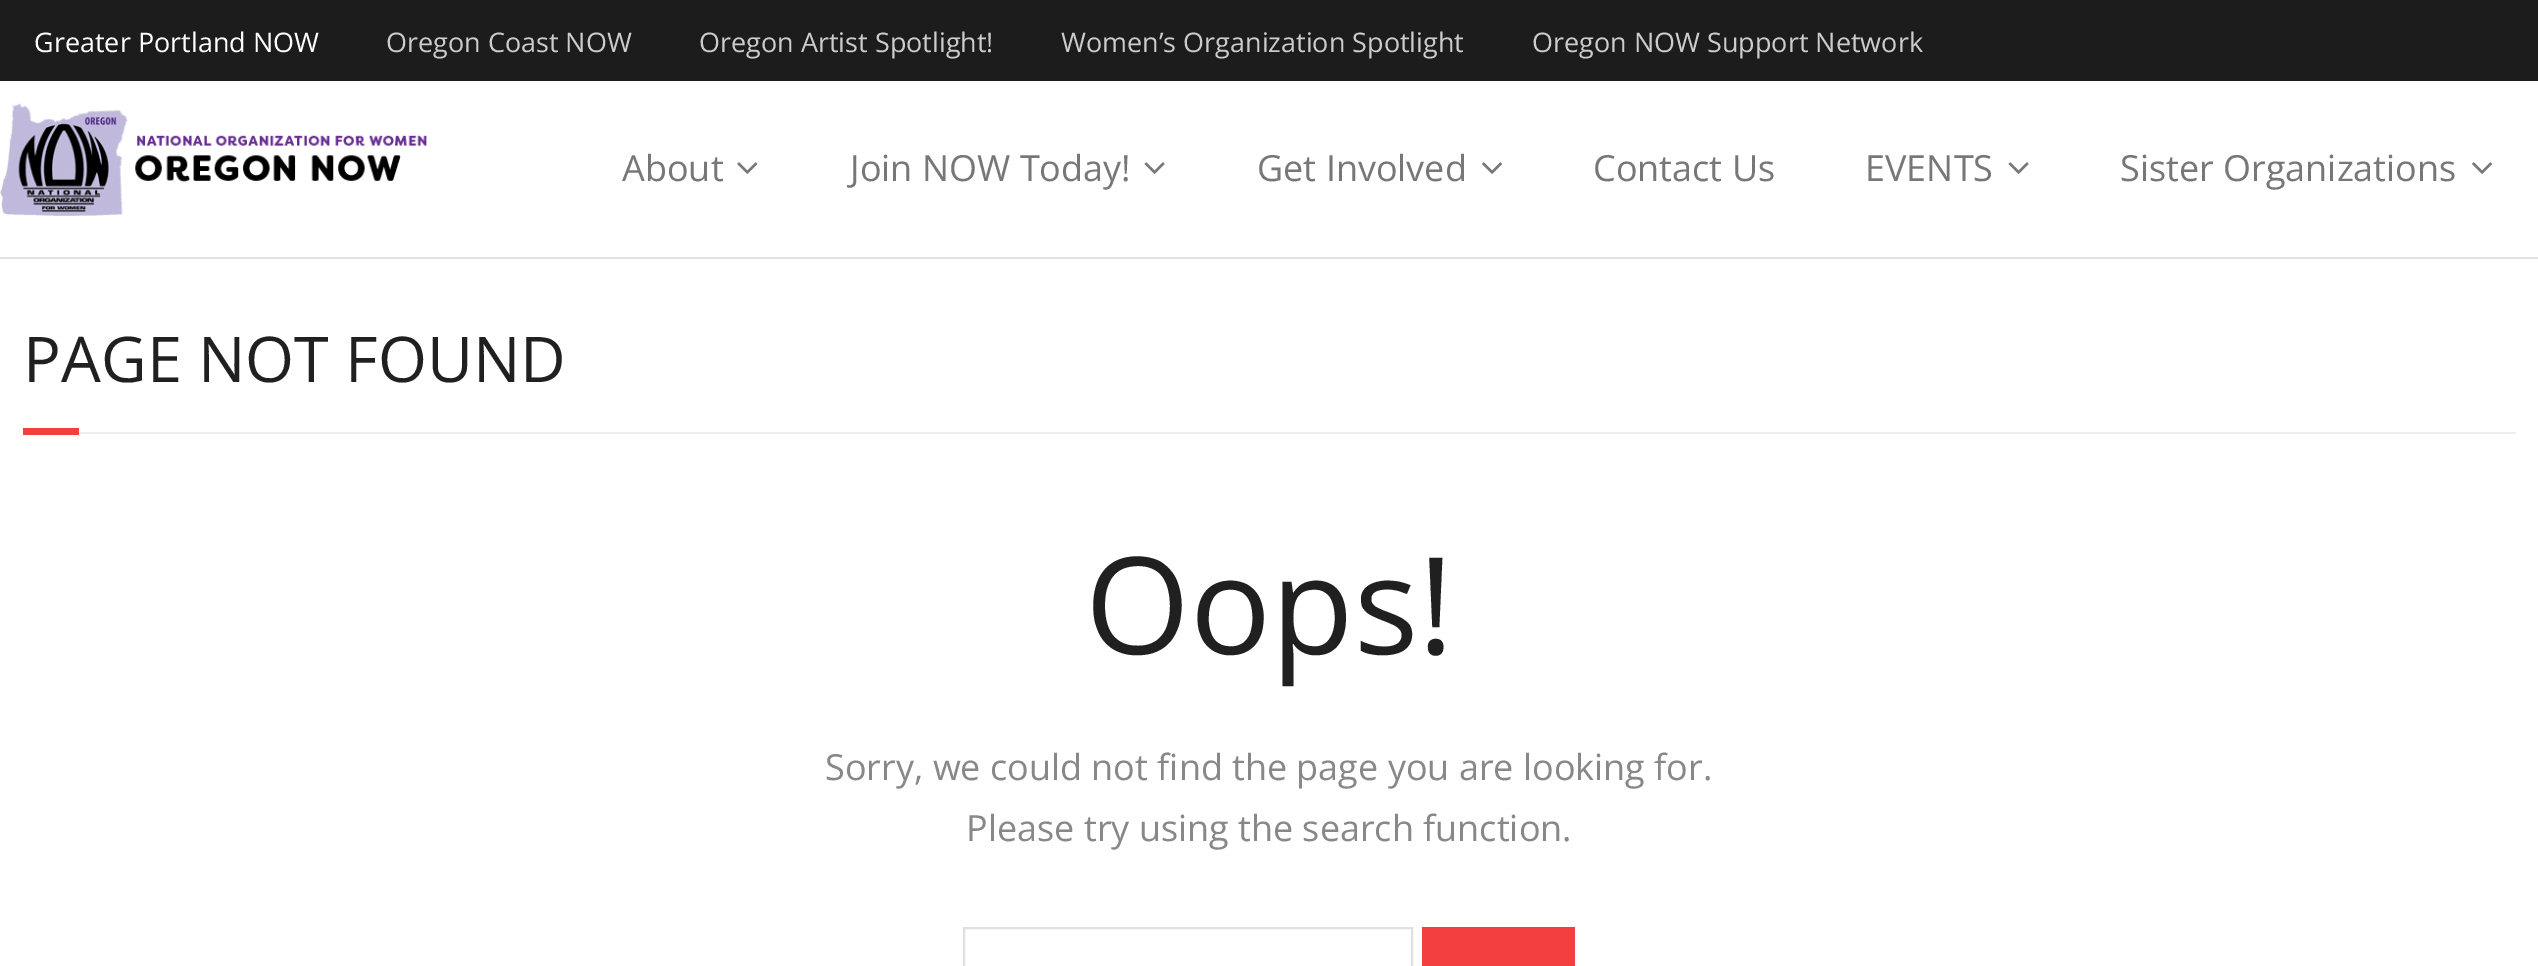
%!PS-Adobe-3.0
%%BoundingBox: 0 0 2538 966
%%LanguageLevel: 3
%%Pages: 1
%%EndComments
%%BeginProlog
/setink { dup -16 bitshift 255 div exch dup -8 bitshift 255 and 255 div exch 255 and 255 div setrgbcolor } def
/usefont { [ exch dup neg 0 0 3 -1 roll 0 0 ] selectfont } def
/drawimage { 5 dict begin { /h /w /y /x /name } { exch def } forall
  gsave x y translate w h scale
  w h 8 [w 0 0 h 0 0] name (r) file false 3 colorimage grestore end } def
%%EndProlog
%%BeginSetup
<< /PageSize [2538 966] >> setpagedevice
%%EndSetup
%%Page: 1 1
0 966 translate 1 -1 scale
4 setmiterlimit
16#FFFFFF setink
0 0 2538 966 rectfill
16#1C1C1C setink
0 0 2538 81 rectfill
/OpenSans-Regular 27 usefont
16#FFFFFF setink
34 52 moveto (Greater Portland NOW) show
16#CCCCCC setink
[
    [(Oregon Coast NOW) 386 52]
    [(Oregon Artist Spotlight!) 699 52]
    [(Women’s Organization Spotlight) 1061 52]
    [(Oregon NOW Support Network) 1532 52]
] { aload pop moveto show } forall
16#E0E0E0 setink
0 257 2538 2 rectfill
(img1.raw) 0 103 427 113 drawimage
/OpenSans-Regular 36 usefont
16#777777 setink
622 181 moveto (About) show
(img2.raw) 737 162 21 12 drawimage
850 181 moveto (Join NOW Today!) show
(img3.raw) 1144 162 21 12 drawimage
1257 181 moveto (Get Involved) show
(img4.raw) 1482 162 20 12 drawimage
1593 181 moveto (Contact Us) show
1865 181 moveto (EVENTS) show
(img3.raw) 2008 162 21 12 drawimage
2120 181 moveto (Sister Organizations) show
(img4.raw) 2472 162 20 12 drawimage
/OpenSans-Regular 63 usefont
16#202020 setink
23 382 moveto (PAGE NOT FOUND) show
16#F33F3F setink
23 428 56 7 rectfill
16#EEEEEE setink
79 432 2437 2 rectfill
/OpenSans-Regular 135 usefont
16#202020 setink
1085 654 moveto (Oops!) show
/OpenSans-Regular 36 usefont
16#888888 setink
825 780 moveto (Sorry, we could not find the page you are looking for.) show
966 841 moveto (Please try using the search function.) show
16#E0E0E0 setink
2 setlinewidth
964 928 448 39 rectstroke
16#F33F3F setink
1422 927 153 39 rectfill
showpage
%%EOF
